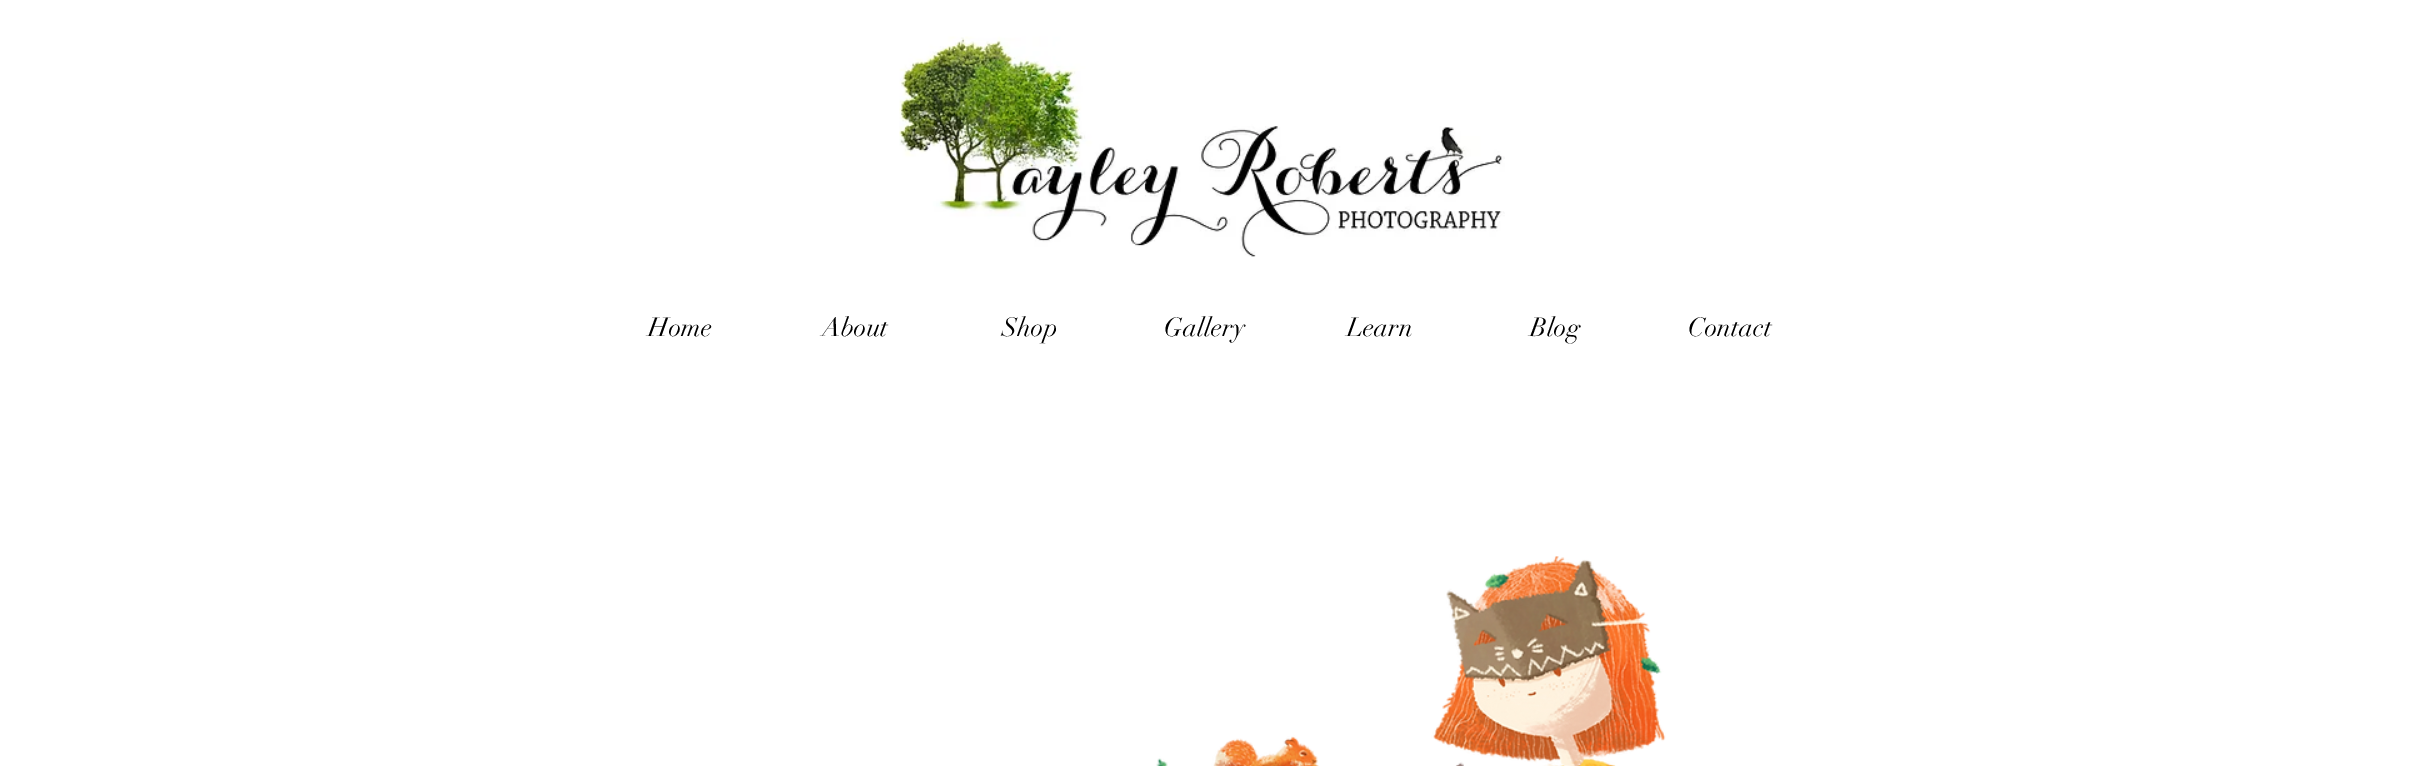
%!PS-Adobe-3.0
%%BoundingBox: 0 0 2410 766
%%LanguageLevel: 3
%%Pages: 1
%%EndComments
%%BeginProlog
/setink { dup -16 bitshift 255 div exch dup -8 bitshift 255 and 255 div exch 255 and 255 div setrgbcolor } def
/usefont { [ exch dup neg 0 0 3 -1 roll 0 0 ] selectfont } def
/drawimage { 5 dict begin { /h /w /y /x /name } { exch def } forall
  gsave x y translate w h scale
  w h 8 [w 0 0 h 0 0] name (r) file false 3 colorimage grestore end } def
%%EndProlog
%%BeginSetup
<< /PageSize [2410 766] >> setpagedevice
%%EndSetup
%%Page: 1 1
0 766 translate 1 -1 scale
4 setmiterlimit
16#FFFFFF setink
0 0 2410 766 rectfill
(img1.raw) 899 36 606 221 drawimage
/didot-Regular 26 usefont
16#000000 setink
[
    [(Home) 648 336]
    [(About) 822 336]
    [(Shop) 1002 336]
    [(Gallery) 1164 336]
    [(Learn) 1347 336]
    [(Blog) 1530 336]
    [(Contact) 1688 336]
] { aload pop moveto show } forall
(img2.raw) 1156 556 510 210 drawimage
showpage
%%EOF
